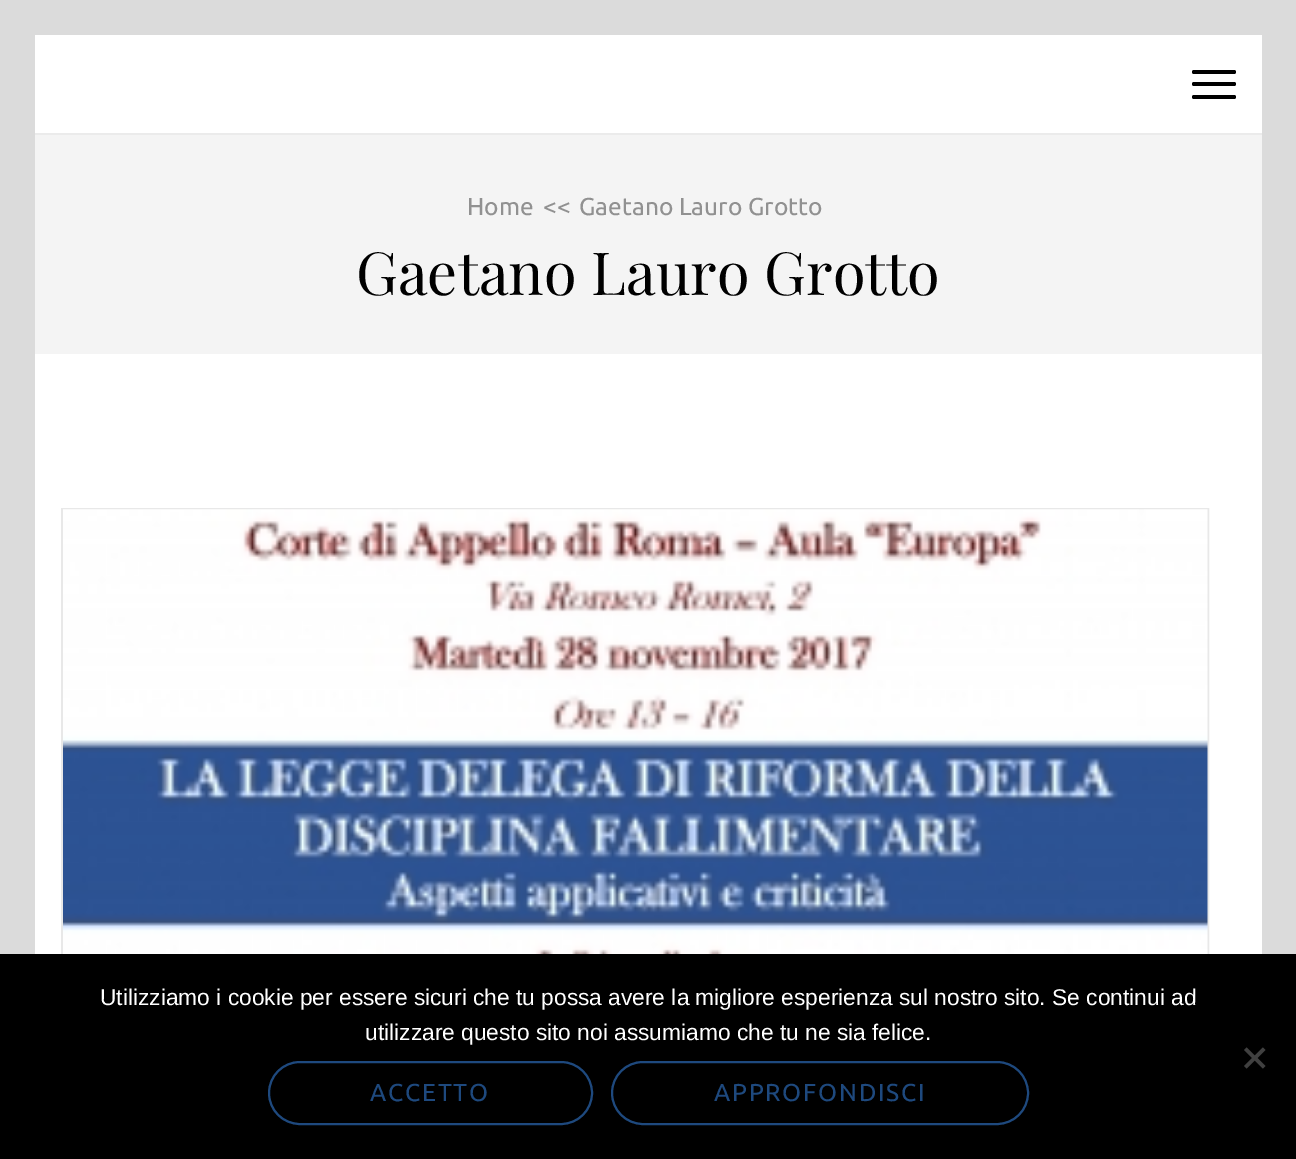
%!PS-Adobe-3.0
%%BoundingBox: 0 0 1296 1159
%%LanguageLevel: 3
%%Pages: 1
%%EndComments
%%BeginProlog
/setink { dup -16 bitshift 255 div exch dup -8 bitshift 255 and 255 div exch 255 and 255 div setrgbcolor } def
/usefont { [ exch dup neg 0 0 3 -1 roll 0 0 ] selectfont } def
/rrect { 5 dict begin { /r /h /w /y /x } { exch def } forall
  x r add y moveto x w add y 2 copy h add r arct x w add y h add x 1 index r arct
  x y h add x y r arct x y 2 copy exch w add exch r arct closepath end } def
/drawimage { 5 dict begin { /h /w /y /x /name } { exch def } forall
  gsave x y translate w h scale
  w h 8 [w 0 0 h 0 0] name (r) file false 3 colorimage grestore end } def
%%EndProlog
%%BeginSetup
<< /PageSize [1296 1159] >> setpagedevice
%%EndSetup
%%Page: 1 1
0 1159 translate 1 -1 scale
4 setmiterlimit
16#DBDBDB setink
0 0 1296 1159 rectfill
16#FFFFFF setink
35 35 1227 919 rectfill
16#000000 setink
1192 70 44 4 2 rrect fill
1192 82 44 4 2 rrect fill
1192 95 44 4 2 rrect fill
16#F4F4F4 setink
35 135 1227 219 rectfill
16#EBEBEB setink
35 133 1227 2 rectfill
/Ubuntu-Regular 24.5 usefont
16#919191 setink
[
    [(Home) 467 215]
    [(<<) 543 215]
    [(Gaetano Lauro Grotto) 579 215]
] { aload pop moveto show } forall
/PlayfairDisplay-Regular 59.5 usefont
16#000000 setink
356 295 moveto (Gaetano Lauro Grotto) show
16#E8E8E8 setink
2 setlinewidth
62 509 1146 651 rectstroke
(img1.raw) 63 509 1145 445 drawimage
16#000000 setink
0 954 1296 205 rectfill
/LiberationSans-Regular 22.75 usefont
16#FFFFFF setink
100 1005 moveto (Utilizziamo i cookie per essere sicuri che tu possa avere la migliore esperienza sul nostro sito. Se continui ad) show
365 1040 moveto (utilizzare questo sito noi assumiamo che tu ne sia felice.) show
16#404040 setink
1263 1047.5 moveto 1265.5 1050 lineto 1246.5 1068.5 lineto 1244 1066 lineto closepath fill
1244 1050 moveto 1246.5 1047.5 lineto 1265.5 1066 lineto 1263 1068.5 lineto closepath fill
16#1E497E setink
269 1062 323 62 31 rrect stroke
/Ubuntu-Regular 24.5 usefont
370 1101 moveto 1.75 0 (ACCETTO) ashow
612 1062 416 62 31 rrect stroke
714 1101 moveto 1.75 0 (APPROFONDISCI) ashow
showpage
%%EOF
